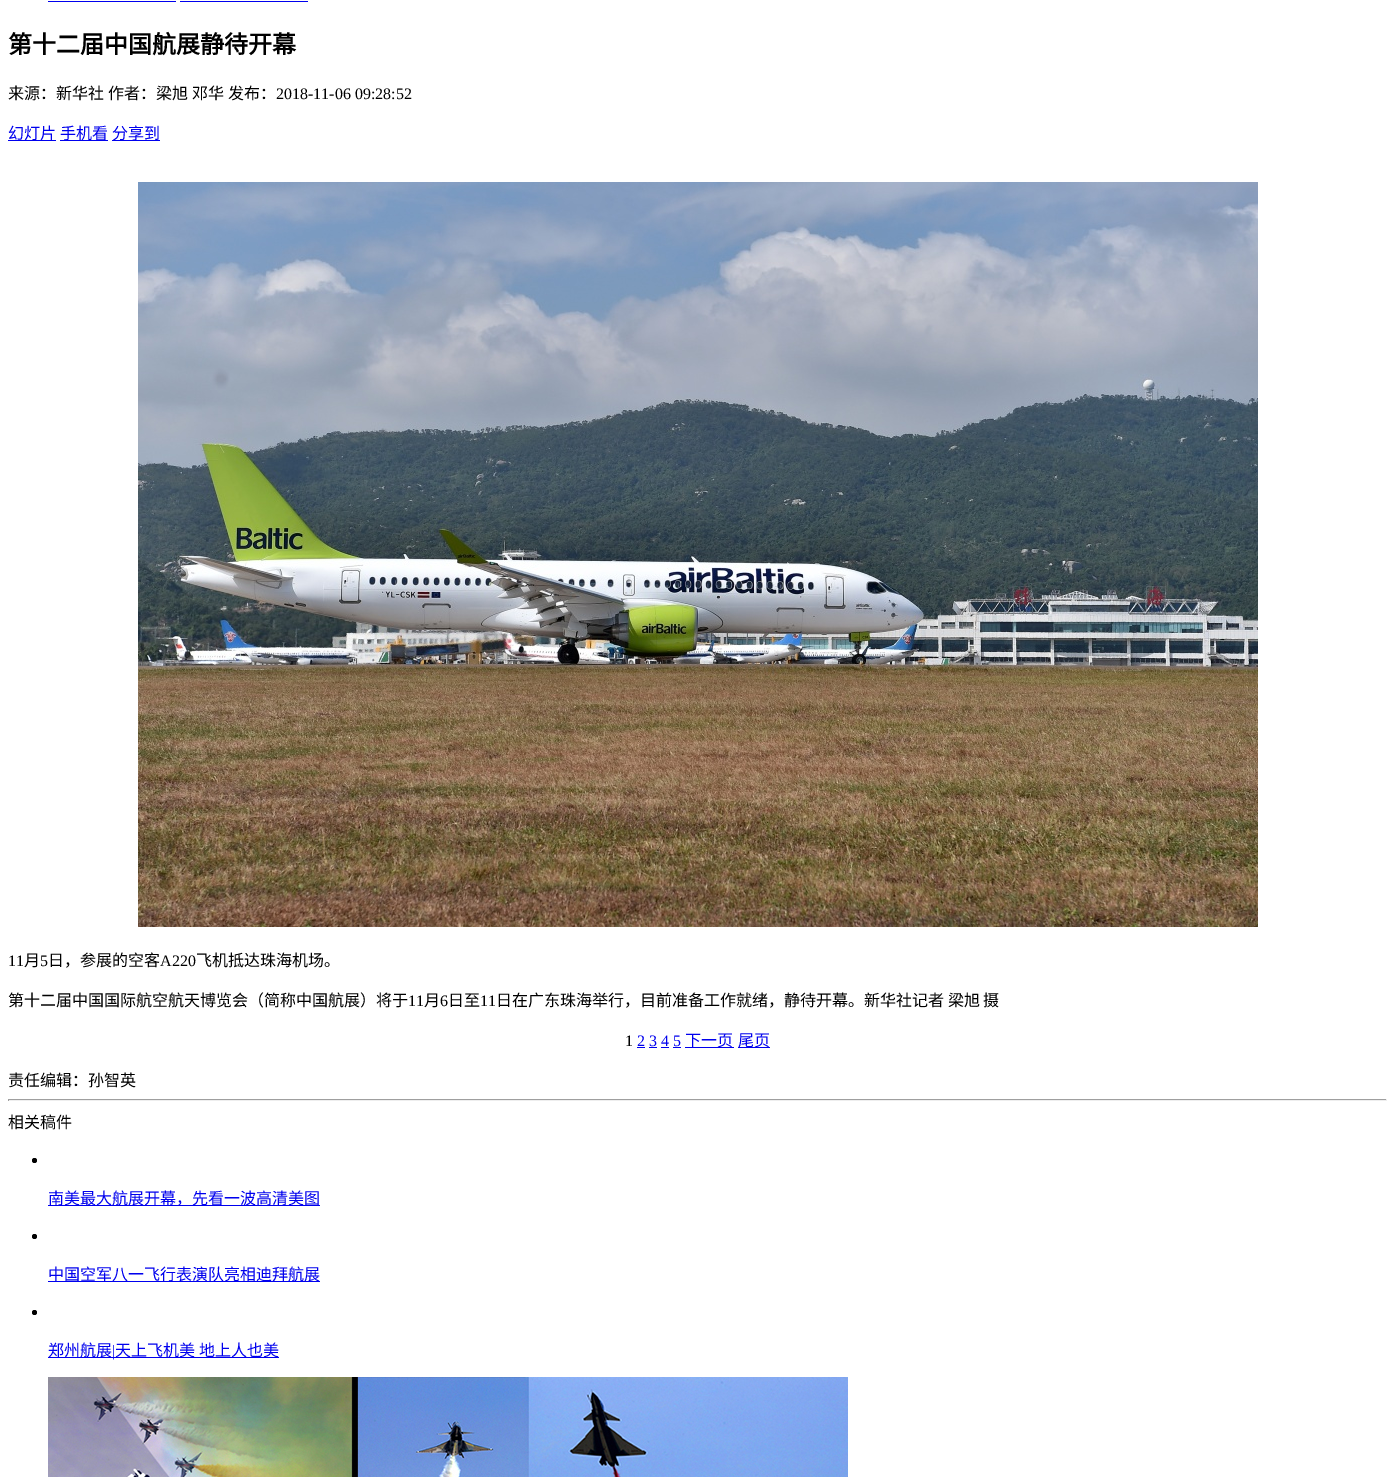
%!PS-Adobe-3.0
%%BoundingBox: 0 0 1395 1477
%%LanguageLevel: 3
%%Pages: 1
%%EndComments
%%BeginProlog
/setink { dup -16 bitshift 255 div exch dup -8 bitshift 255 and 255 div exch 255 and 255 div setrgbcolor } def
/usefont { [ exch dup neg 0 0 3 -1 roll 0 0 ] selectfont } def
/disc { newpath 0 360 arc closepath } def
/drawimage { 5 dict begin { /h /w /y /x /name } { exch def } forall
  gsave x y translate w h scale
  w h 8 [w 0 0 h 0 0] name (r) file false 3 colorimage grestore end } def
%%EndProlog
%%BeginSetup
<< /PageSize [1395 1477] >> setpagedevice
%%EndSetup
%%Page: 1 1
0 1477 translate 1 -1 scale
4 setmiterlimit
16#FFFFFF setink
0 0 1395 1477 rectfill
16#0000EE setink
48 1 128 1 rectfill
180 1 128 1 rectfill
/NotoSansCJKSC-Bold 24 usefont
16#000000 setink
8 53 moveto (第十二届中国航展静待开幕) show
/NotoSansCJKSC-Regular 16 usefont
[
    [(来源：新华社) 8 99]
    [(作者：) 108 99]
    [(梁旭 邓华) 156 99]
    [(发布：) 228 99]
] { aload pop moveto show } forall
/LiberationSerif-Regular 16 usefont
276 99 moveto (2018-11-06 09:28:52) show
16#0000EE setink
8 140 48 1 rectfill
/NotoSansCJKSC-Regular 16 usefont
8 139 moveto (幻灯片) show
60 140 48 1 rectfill
60 139 moveto (手机看) show
112 140 48 1 rectfill
112 139 moveto (分享到) show
(img1.raw) 138 182 1120 745 drawimage
/LiberationSerif-Regular 16 usefont
16#000000 setink
8 966 moveto (11) show
/NotoSansCJKSC-Regular 16 usefont
24 966 moveto (月) show
/LiberationSerif-Regular 16 usefont
40 966 moveto (5) show
/NotoSansCJKSC-Regular 16 usefont
48 966 moveto (日，参展的空客) show
/LiberationSerif-Regular 16 usefont
160 966 moveto (A220) show
/NotoSansCJKSC-Regular 16 usefont
196 966 moveto (飞机抵达珠海机场。) show
8 1006 moveto (第十二届中国国际航空航天博览会（简称中国航展）将于) show
/LiberationSerif-Regular 16 usefont
408 1006 moveto (11) show
/NotoSansCJKSC-Regular 16 usefont
424 1006 moveto (月) show
/LiberationSerif-Regular 16 usefont
440 1006 moveto (6) show
/NotoSansCJKSC-Regular 16 usefont
448 1006 moveto (日至) show
/LiberationSerif-Regular 16 usefont
480 1006 moveto (11) show
/NotoSansCJKSC-Regular 16 usefont
496 1006 moveto (日在广东珠海举行，目前准备工作就绪，静待开幕。新华社记者 梁旭 摄) show
/LiberationSerif-Regular 16 usefont
625 1046 moveto (1) show
16#0000EE setink
637 1046 moveto (2 3 4 5) show
637 1047 8 1 rectfill
685 1047 49 1 rectfill
/NotoSansCJKSC-Regular 16 usefont
685 1046 moveto (下一页) show
738 1047 32 1 rectfill
738 1046 moveto (尾页) show
[
    [649 1047 8 1 16#0000EE]
    [661 1047 8 1 16#0000EE]
    [673 1047 8 1 16#0000EE]
] { aload pop setink rectfill } forall
16#000000 setink
8 1086 moveto (责任编辑：孙智英) show
[
    [8 1099 1379 1 16#9F9F9F]
    [1386 1099 1 2 16#EEEEEE]
    [8 1100 1379 1 16#EEEEEE]
    [8 1099 1 2 16#9F9F9F]
] { aload pop setink rectfill } forall
16#000000 setink
8 1128 moveto (相关稿件) show
34.5 1160.5 2.5 disc fill
16#0000EE setink
48 1205 272 1 rectfill
48 1204 moveto (南美最大航展开幕，先看一波高清美图) show
16#000000 setink
34.5 1236.5 2.5 disc fill
16#0000EE setink
48 1281 272 1 rectfill
48 1280 moveto (中国空军八一飞行表演队亮相迪拜航展) show
16#000000 setink
34.5 1312.5 2.5 disc fill
16#0000EE setink
48 1357 231 1 rectfill
48 1356 moveto (郑州航展) show
/LiberationSerif-Regular 16 usefont
112 1356 moveto (|) show
/NotoSansCJKSC-Regular 16 usefont
115 1356 moveto (天上飞机美 地上人也美) show
(img2.raw) 48 1377 800 100 drawimage
showpage
%%EOF
